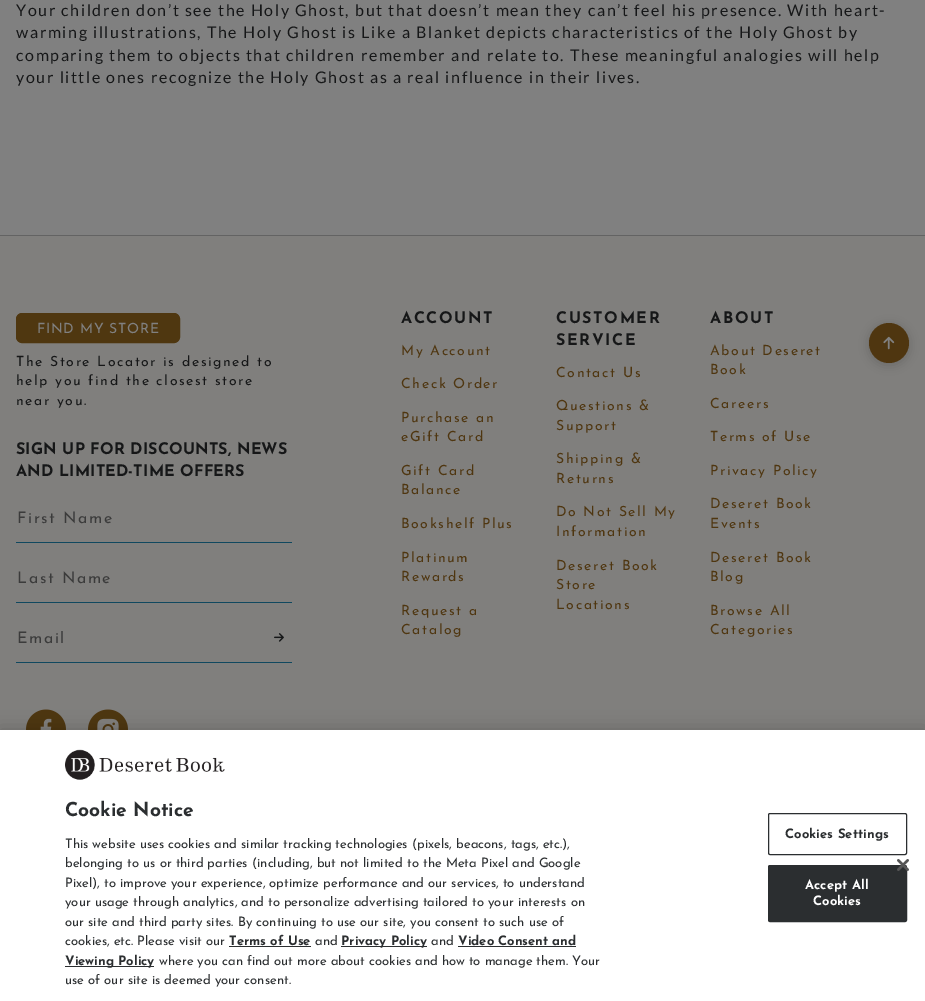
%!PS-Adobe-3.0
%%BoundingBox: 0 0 925 1001
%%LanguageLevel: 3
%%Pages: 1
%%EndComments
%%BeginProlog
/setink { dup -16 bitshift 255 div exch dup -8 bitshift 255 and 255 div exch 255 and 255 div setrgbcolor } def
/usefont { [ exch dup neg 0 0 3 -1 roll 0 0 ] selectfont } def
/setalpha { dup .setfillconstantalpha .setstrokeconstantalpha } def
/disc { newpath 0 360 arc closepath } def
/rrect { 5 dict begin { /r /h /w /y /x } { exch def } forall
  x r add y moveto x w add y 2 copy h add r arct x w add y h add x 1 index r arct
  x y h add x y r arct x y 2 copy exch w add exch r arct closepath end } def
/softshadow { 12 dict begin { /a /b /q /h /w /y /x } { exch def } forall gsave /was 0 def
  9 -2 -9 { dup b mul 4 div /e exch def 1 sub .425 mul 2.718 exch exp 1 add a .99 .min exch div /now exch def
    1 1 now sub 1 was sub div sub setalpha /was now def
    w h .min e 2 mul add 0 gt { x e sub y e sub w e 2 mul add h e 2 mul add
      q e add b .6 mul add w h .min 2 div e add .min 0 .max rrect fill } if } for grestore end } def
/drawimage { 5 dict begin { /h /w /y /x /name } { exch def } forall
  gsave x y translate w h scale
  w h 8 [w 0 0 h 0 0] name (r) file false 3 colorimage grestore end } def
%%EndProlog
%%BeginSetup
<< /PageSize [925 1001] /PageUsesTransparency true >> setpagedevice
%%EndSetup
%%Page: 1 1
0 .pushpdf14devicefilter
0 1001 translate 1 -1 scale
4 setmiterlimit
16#808080 setink
0 0 925 1001 rectfill
/Lato-Regular 16 usefont
16#161718 setink
16 16 moveto 1.6 0 (Your children don’t see the Holy Ghost, but that doesn’t mean they can’t feel his presence. With heart-) ashow
16 38 moveto 1.6 0 (warming illustrations, The Holy Ghost is Like a Blanket depicts characteristics of the Holy Ghost by) ashow
16 61 moveto 1.6 0 (comparing them to objects that children remember and relate to. These meaningful analogies will help) ashow
16 83 moveto 1.6 0 (your little ones recognize the Holy Ghost as a real influence in their lives.) ashow
16#807F7D setink
0 236 925 494 rectfill
16#636363 setink
0 235 925 1 rectfill
16#4F3710 setink
16.5 313.5 163 29 5.5 rrect gsave fill grestore
stroke
/JosefinSans-Thin 14 usefont
16#808080 setink
37 333 moveto 0.75 0 (FIND MY STORE) ashow
16#161718 setink
16 366 moveto 1.6 0 (The Store Locator is designed to) ashow
16 385 moveto 1.6 0 (help you find the closest store) ashow
16 405 moveto 1.6 0 (near you.) ashow
/JosefinSans-Bold 16 usefont
16 454 moveto 0.15 0 (SIGN UP FOR DISCOUNTS, NEWS) ashow
16 476 moveto 0.15 0 (AND LIMITED-TIME OFFERS) ashow
16#10485F setink
16 542 276 1 rectfill
/JosefinSans-Thin 16 usefont
16#3B3B3B setink
17 523 moveto 1.6 0 (First Name) ashow
16#10485F setink
16 602 276 1 rectfill
16#3B3B3B setink
17 583 moveto 1.6 0 (Last Name) ashow
16#10485F setink
16 662 276 1 rectfill
gsave
17 631 222 16 rectclip
16#3B3B3B setink
17 643 moveto 1.6 0 (Email) ashow
grestore
(img1.raw) 274 633 10 9 drawimage
(img2.raw) 26 709 40 21 drawimage
(img3.raw) 88 709 40 21 drawimage
/JosefinSans-Bold 16 usefont
16#161718 setink
401 323 moveto 1.6 0 (ACCOUNT) ashow
/JosefinSans-Thin 14 usefont
16#4F3610 setink
401 355 moveto 1.6 0 (My Account) ashow
401 388 moveto 1.6 0 (Check Order) ashow
401 422 moveto 1.6 0 (Purchase an) ashow
401 441 moveto 1.6 0 (eGift Card) ashow
401 475 moveto 1.6 0 (Gift Card) ashow
401 494 moveto 1.6 0 (Balance) ashow
401 528 moveto 1.6 0 (Bookshelf Plus) ashow
401 562 moveto 1.6 0 (Platinum) ashow
401 581 moveto 1.6 0 (Rewards) ashow
401 615 moveto 1.6 0 (Request a) ashow
401 634 moveto 1.6 0 (Catalog) ashow
/JosefinSans-Bold 16 usefont
16#161718 setink
556 323 moveto 1.6 0 (CUSTOMER) ashow
556 345 moveto 1.6 0 (SERVICE) ashow
/JosefinSans-Thin 14 usefont
16#4F3610 setink
556 377 moveto 1.6 0 (Contact Us) ashow
556 410 moveto 1.6 0 (Questions &) ashow
556 430 moveto 1.6 0 (Support) ashow
556 463 moveto 1.6 0 (Shipping &) ashow
556 483 moveto 1.6 0 (Returns) ashow
556 516 moveto 1.6 0 (Do Not Sell My) ashow
556 536 moveto 1.6 0 (Information) ashow
556 570 moveto 1.6 0 (Deseret Book) ashow
556 589 moveto 1.6 0 (Store) ashow
556 609 moveto 1.6 0 (Locations) ashow
/JosefinSans-Bold 16 usefont
16#161718 setink
710 323 moveto 1.6 0 (ABOUT) ashow
/JosefinSans-Thin 14 usefont
16#4F3610 setink
710 355 moveto 1.6 0 (About Deseret) ashow
710 374 moveto 1.6 0 (Book) ashow
710 408 moveto 1.6 0 (Careers) ashow
710 441 moveto 1.6 0 (Terms of Use) ashow
710 475 moveto 1.6 0 (Privacy Policy) ashow
710 508 moveto 1.6 0 (Deseret Book) ashow
710 528 moveto 1.6 0 (Events) ashow
710 562 moveto 1.6 0 (Deseret Book) ashow
710 581 moveto 1.6 0 (Blog) ashow
710 615 moveto 1.6 0 (Browse All) ashow
710 634 moveto 1.6 0 (Categories) ashow
16#111111 setink
869 325 40 40 20 5 0.2 softshadow
16#4F3610 setink
889 343 20 disc fill
(img4.raw) 883 336 12 14 drawimage
16#000000 setink
0 730 925 271 0 9 0.2 softshadow
16#FFFFFF setink
0 730 925 271 rectfill
(img5.raw) 65 749 160 31 drawimage
/JosefinSans-Bold 19.25 usefont
16#2B2E30 setink
65 816 moveto (Cookie Notice) show
/JosefinSans-Thin 13 usefont
[
    [(This website uses cookies and similar tracking technologies \(pixels, beacons, tags, etc.\),) 65 848]
    [(belonging to us or third parties \(including, but not limited to the Meta Pixel and Google) 65 867]
    [(Pixel\), to improve your experience, optimize performance and our services, to understand) 65 887]
    [(your usage through analytics, and to personalize advertising tailored to your interests on) 65 906]
    [(our site and third party sites. By continuing to use our site, you consent to such use of) 65 926]
    [(cookies, etc. Please visit our) 65 945]
] { aload pop moveto show } forall
/JosefinSans-Bold 13 usefont
229 945 moveto (Terms of Use) show
229 946 82 1 rectfill
/JosefinSans-Thin 13 usefont
315 945 moveto (and) show
341 946 86 1 rectfill
/JosefinSans-Bold 13 usefont
341 945 moveto (Privacy Policy) show
/JosefinSans-Thin 13 usefont
431 945 moveto (and) show
/JosefinSans-Bold 13 usefont
458 945 moveto (Video Consent and) show
458 946 118 1 rectfill
65 966 89 1 rectfill
65 965 moveto (Viewing Policy) show
/JosefinSans-Thin 13 usefont
159 965 moveto (where you can find out more about cookies and how to manage them. Your) show
65 984 moveto (use of our site is deemed your consent.) show
768.5 813.5 138 41 1.5 rrect stroke
/JosefinSans-Bold 13 usefont
785 838 moveto 0.1 0 (Cookies Settings) ashow
768.5 865.5 138 56 1.5 rrect gsave fill grestore
stroke
16#FFFFFF setink
805 889 moveto 0.1 0 (Accept All) ashow
813 905 moveto 0.1 0 (Cookies) ashow
(img6.raw) 897 859 12 12 drawimage
.poppdf14devicefilter showpage
%%EOF
